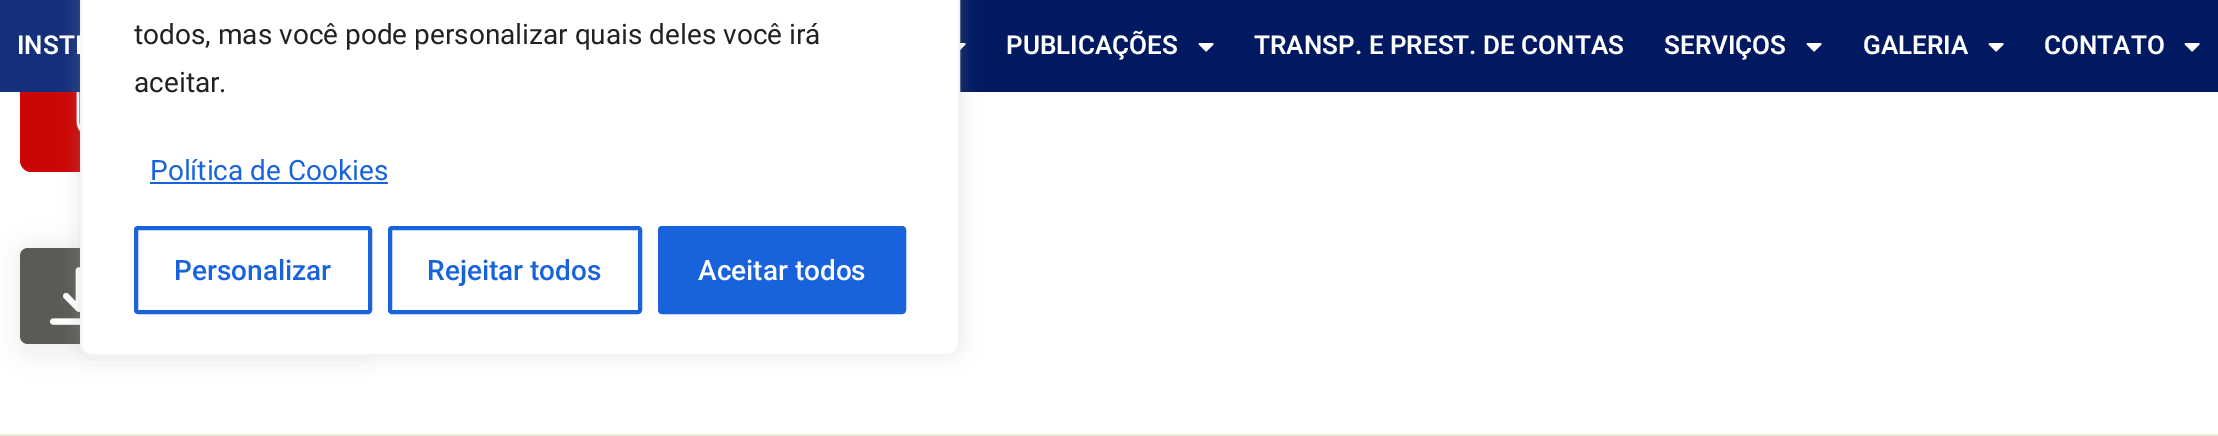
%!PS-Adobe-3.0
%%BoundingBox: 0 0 2218 436
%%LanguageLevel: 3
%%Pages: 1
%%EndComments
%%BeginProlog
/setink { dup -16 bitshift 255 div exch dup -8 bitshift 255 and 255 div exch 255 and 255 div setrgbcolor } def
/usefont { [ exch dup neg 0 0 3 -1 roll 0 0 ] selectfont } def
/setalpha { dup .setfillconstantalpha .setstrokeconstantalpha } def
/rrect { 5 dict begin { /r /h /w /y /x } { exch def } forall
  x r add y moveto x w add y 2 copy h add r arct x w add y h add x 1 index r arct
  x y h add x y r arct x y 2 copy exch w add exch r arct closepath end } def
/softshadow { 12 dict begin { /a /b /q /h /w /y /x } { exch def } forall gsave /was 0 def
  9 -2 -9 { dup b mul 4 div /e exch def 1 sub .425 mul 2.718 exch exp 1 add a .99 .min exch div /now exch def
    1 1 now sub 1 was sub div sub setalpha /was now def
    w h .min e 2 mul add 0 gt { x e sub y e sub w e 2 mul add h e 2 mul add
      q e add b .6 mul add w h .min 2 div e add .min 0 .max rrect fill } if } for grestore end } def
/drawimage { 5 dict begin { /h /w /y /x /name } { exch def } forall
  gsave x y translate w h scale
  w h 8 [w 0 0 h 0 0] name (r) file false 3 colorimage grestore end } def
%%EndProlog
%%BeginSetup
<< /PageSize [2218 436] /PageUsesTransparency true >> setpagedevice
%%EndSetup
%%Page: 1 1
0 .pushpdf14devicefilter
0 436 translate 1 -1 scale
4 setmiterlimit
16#FFFFFF setink
0 0 2218 436 rectfill
16#001960 setink
960 0 1258 92 rectfill
16#142F7B setink
0 0 80 92 rectfill
(img1.raw) 960 43 6 7 drawimage
(img3.raw) 20 92 60 80 drawimage
16#F0F0F0 setink
14 242 360 116 18 12 1 softshadow
16#5C5A57 setink
20 248 340 96 8 rrect fill
(img4.raw) 50 267 30 58 drawimage
16#ACABAB setink
80 -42 880 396 12 10 0.3 softshadow
16#FFFFFF setink
81 -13 878 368 11 rrect gsave fill grestore
16#F4F4F4 setink
2 setlinewidth
stroke
/Roboto-Regular 28 usefont
16#212121 setink
134 44 moveto (todos, mas você pode personalizar quais deles você irá) show
134 92 moveto (aceitar.) show
16#1863DC setink
150 180 moveto (Política de Cookies) show
150 182 238 2 rectfill
4 setlinewidth
136 228 234 84 2 rrect stroke
/Roboto-Medium 28 usefont
174 280 moveto (Personalizar) show
390 228 250 84 2 rrect stroke
427 280 moveto (Rejeitar todos) show
660 228 244 84 2 rrect gsave fill grestore
stroke
16#FFFFFF setink
698 280 moveto (Aceitar todos) show
/Roboto-SemiBold 26 usefont
17 54 moveto (INSTI) show
1006 54 moveto (PUBLICAÇÕES) show
(img2.raw) 1198 43 16 9 drawimage
1254 54 moveto (TRANSP. E PREST. DE CONTAS) show
1664 54 moveto (SERVIÇOS) show
(img2.raw) 1806 43 16 9 drawimage
1863 54 moveto (GALERIA) show
(img2.raw) 1988 43 16 9 drawimage
2044 54 moveto (CONTATO) show
(img2.raw) 2184 43 16 9 drawimage
16#EFEAD7 setink
0 434 2218 2 rectfill
.poppdf14devicefilter showpage
%%EOF
